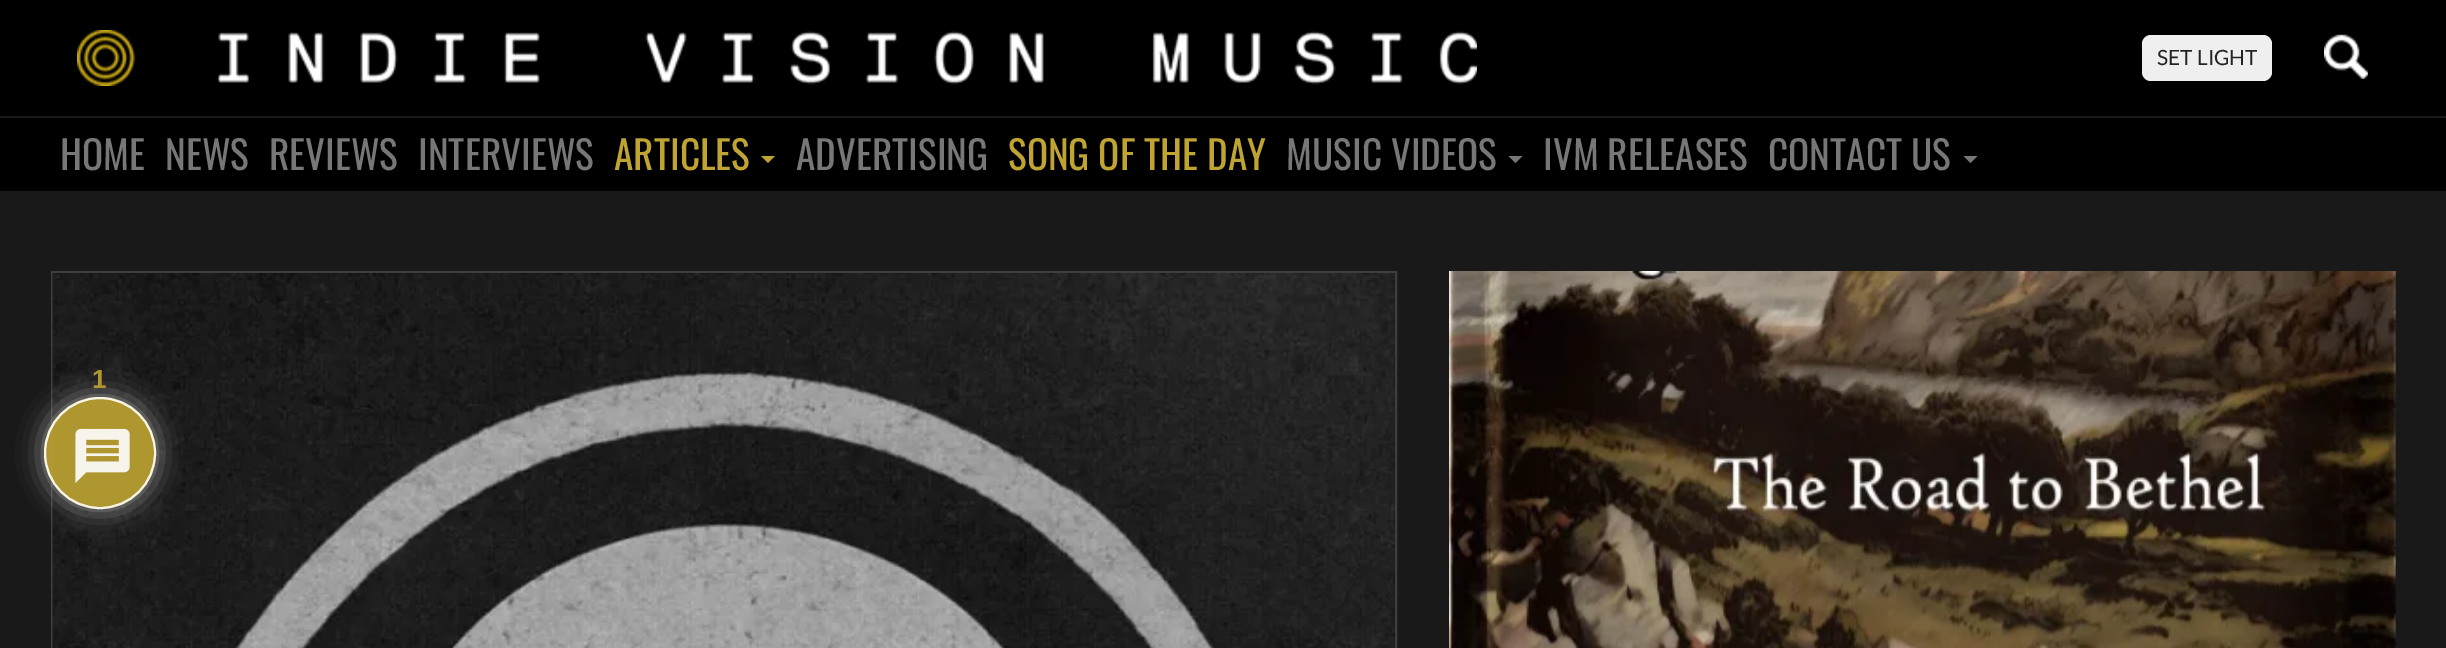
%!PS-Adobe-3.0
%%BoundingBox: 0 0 2446 648
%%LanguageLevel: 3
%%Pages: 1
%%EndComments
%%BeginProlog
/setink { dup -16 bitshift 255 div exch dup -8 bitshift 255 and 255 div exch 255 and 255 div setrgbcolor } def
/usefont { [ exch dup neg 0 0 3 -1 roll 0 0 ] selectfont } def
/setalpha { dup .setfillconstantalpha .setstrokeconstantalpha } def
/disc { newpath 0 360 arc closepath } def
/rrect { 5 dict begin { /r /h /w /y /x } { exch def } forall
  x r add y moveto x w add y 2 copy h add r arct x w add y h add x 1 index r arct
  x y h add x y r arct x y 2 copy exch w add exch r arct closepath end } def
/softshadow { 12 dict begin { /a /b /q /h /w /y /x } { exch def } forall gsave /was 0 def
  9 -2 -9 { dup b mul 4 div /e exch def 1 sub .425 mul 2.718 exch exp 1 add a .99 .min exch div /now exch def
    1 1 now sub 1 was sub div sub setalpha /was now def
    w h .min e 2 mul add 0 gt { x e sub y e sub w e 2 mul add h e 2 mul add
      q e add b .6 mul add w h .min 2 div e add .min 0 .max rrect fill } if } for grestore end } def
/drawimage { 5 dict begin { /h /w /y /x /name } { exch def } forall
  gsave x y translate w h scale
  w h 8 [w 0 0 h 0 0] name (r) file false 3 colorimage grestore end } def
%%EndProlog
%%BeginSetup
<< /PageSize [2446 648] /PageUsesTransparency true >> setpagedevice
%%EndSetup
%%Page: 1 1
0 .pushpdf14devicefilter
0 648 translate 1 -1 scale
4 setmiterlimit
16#191919 setink
0 0 2446 648 rectfill
16#000000 setink
0 0 2446 191 rectfill
(img1.raw) 77 30 1400 56 drawimage
16#EFEFEF setink
2142 35 130 46 9 rrect fill
/Lato-Regular 21 usefont
16#232323 setink
2157 65 moveto (SET LIGHT) show
(img2.raw) 2324 34 44 45 drawimage
16#1A1A1A setink
0 116 2446 2 rectfill
/Oswald-Regular 39.25 usefont
16#777777 setink
[
    [(HOME) 60 170]
    [(NEWS) 165 170]
    [(REVIEWS) 269 170]
    [(INTERVIEWS) 418 170]
] { aload pop moveto show } forall
16#BFA432 setink
614 170 moveto (ARTICLES) show
761 156 moveto 775 156 lineto 768 163 lineto closepath fill
16#777777 setink
796 170 moveto (ADVERTISING) show
16#BFA432 setink
1008 170 moveto (SONG OF THE DAY) show
16#777777 setink
1286 170 moveto (MUSIC VIDEOS) show
1508.5 156 moveto 1522.5 156 lineto 1515.5 163 lineto closepath fill
1543 170 moveto (IVM RELEASES) show
1768 170 moveto (CONTACT US) show
1963.5 156 moveto 1977.5 156 lineto 1970.5 163 lineto closepath fill
16#3E3E3E setink
2 setlinewidth
52 272 1344 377 rectstroke
(img3.raw) 52 273 1343 375 drawimage
(img4.raw) 1449 271 947 377 drawimage
gsave
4 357 moveto 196 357 lineto 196 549 lineto 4 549 lineto closepath 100 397 moveto 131 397 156 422 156 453 curveto 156 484 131 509 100 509 curveto 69 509 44 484 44 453 curveto 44 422 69 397 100 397 curveto closepath eoclip newpath
16#AAAAAA setink
44 397 112 112 56 13 0.9 softshadow
grestore
0.9 setalpha
16#BFA432 setink
100 453 56 disc fill
16#FFFFFF setink
100 453 55 disc stroke
1 setalpha
(img5.raw) 75 428 55 55 drawimage
/LiberationSans-Bold 26 usefont
16#AF9630 setink
92 388 moveto (1) show
.poppdf14devicefilter showpage
%%EOF
